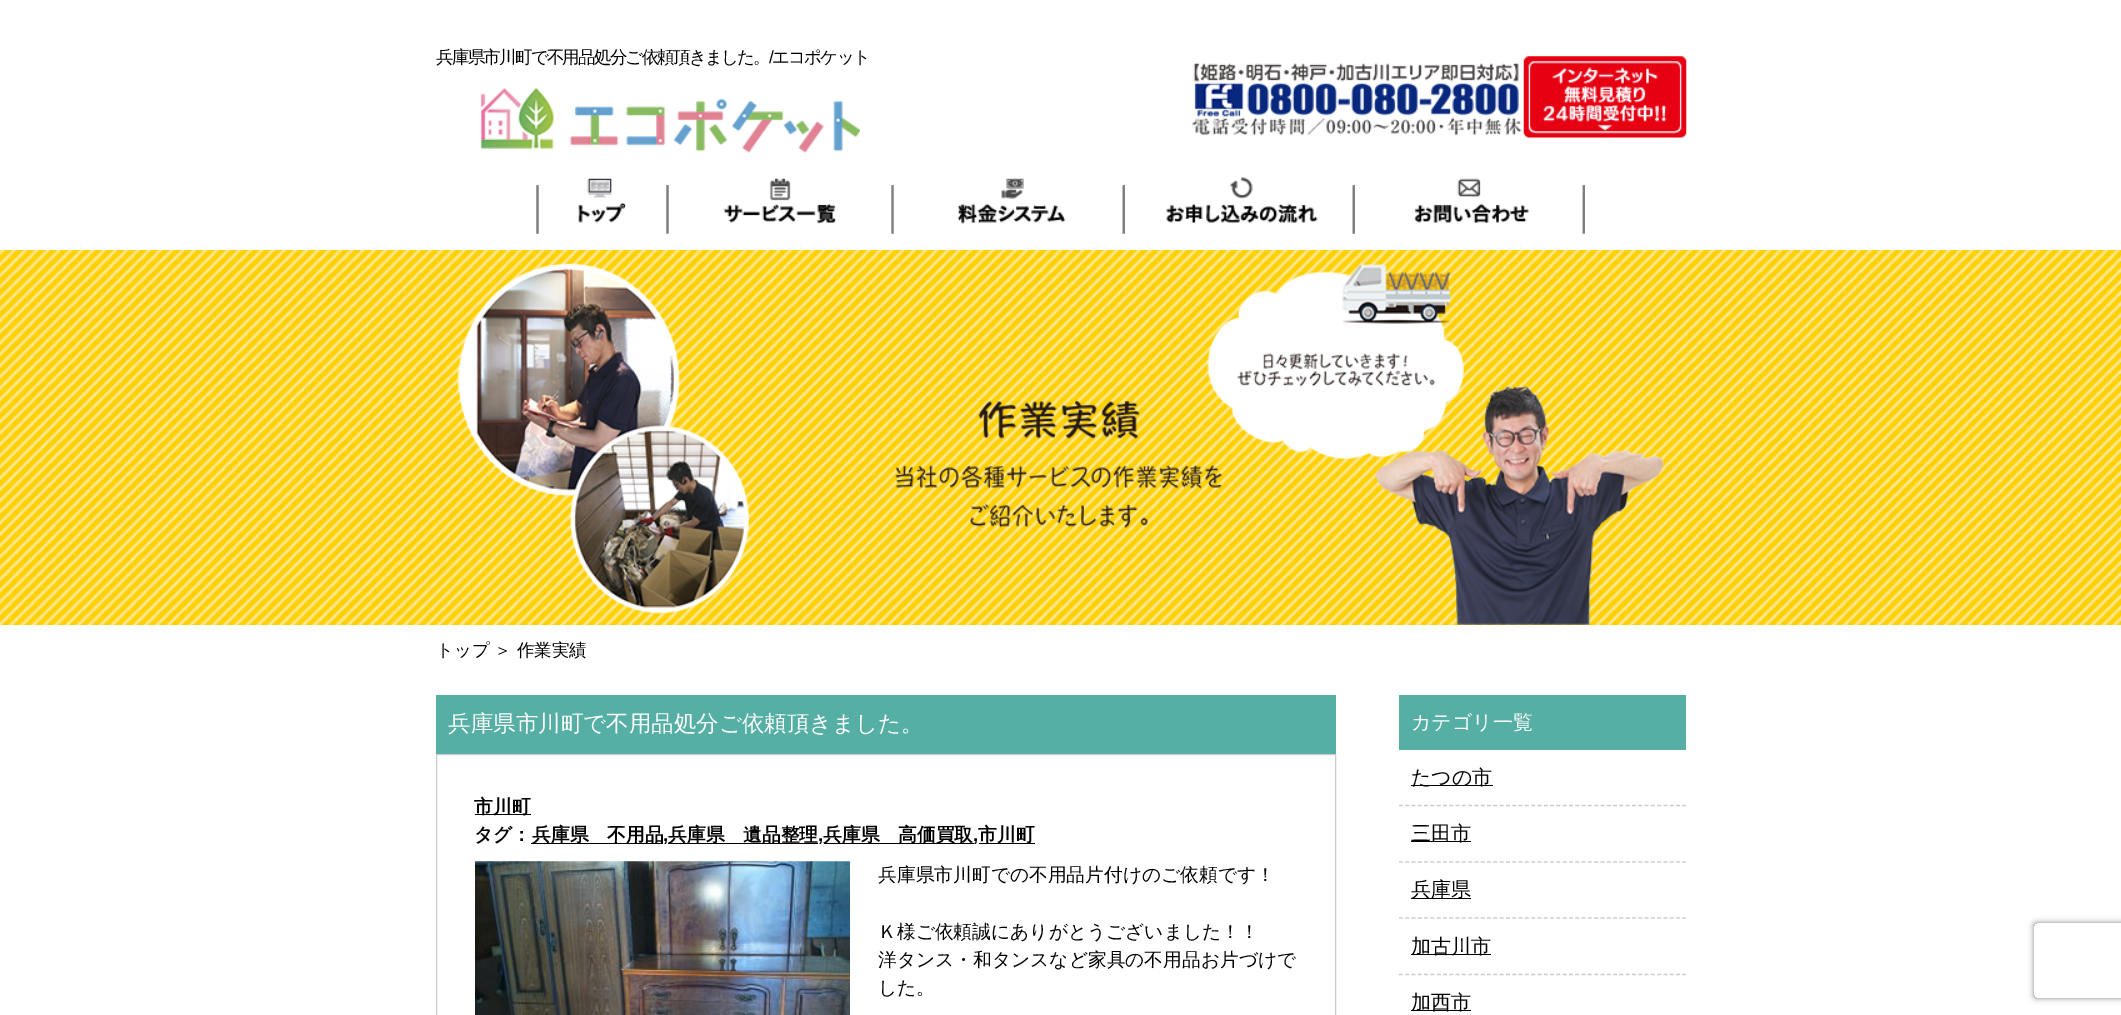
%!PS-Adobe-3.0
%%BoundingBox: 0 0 2121 1015
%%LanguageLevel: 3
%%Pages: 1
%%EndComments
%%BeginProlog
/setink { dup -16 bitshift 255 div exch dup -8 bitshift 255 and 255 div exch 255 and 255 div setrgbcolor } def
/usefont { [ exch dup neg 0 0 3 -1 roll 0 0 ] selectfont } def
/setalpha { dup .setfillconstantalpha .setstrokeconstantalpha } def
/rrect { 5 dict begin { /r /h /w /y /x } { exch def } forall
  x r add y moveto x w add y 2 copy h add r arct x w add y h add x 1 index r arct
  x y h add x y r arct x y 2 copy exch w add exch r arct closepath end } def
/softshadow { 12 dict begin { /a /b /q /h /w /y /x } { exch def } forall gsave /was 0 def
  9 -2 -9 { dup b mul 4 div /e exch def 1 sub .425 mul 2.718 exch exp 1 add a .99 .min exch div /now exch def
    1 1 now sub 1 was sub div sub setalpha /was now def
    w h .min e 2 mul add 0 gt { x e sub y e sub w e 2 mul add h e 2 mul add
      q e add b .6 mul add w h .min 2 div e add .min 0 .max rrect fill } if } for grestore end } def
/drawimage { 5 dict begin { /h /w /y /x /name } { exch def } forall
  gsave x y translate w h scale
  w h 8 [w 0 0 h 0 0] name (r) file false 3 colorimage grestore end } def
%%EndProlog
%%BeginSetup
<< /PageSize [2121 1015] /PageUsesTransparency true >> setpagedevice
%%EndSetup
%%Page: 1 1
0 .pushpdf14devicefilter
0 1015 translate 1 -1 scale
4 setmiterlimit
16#FFFFFF setink
0 0 2121 1015 rectfill
/WenQuanYiZenHei-Medium 17.5 usefont
16#000000 setink
436 63 moveto -1.75 0 (兵庫県市川町で不用品処分ご依頼頂きました。) ashow
/LiberationSans-Regular 17.5 usefont
769 63 moveto -1.75 0 (/) ashow
/WenQuanYiZenHei-Medium 17.5 usefont
772 63 moveto -1.75 0 (エコポケット) ashow
(img1.raw) 480 87 380 66 drawimage
(img2.raw) 1192 63 331 73 drawimage
(img3.raw) 1523 56 164 82 drawimage
(img4.raw) 536 178 90 56 drawimage
(img5.raw) 666 178 228 56 drawimage
(img6.raw) 957 178 168 56 drawimage
(img7.raw) 1166 177 189 57 drawimage
(img8.raw) 1414 178 171 56 drawimage
(img9.raw) 0 250 2121 375 drawimage
(img10.raw) 457 263 1207 362 drawimage
436 656 moveto (トップ) show
494 656 moveto (＞ 作業実績) show
16#55AFA4 setink
436 695 900 59 rectfill
/WenQuanYiZenHei-Medium 22.5 usefont
16#FFFFFF setink
448 731 moveto (兵庫県市川町で不用品処分ご依頼頂きました。) show
16#CCCCCC setink
436.5 754.5 899 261 rectstroke
16#000000 setink
475 814 56 1 rectfill
/WenQuanYiZenHei-Bold 18.75 usefont
474 813 moveto (市川町) show
474 841 moveto (タグ：) show
531 843 132 1 rectfill
532 841 moveto (兵庫県　不用品) show
/LiberationSans-Bold 18.75 usefont
663 841 moveto (,) show
668 843 150 1 rectfill
/WenQuanYiZenHei-Bold 18.75 usefont
668 841 moveto (兵庫県　遺品整理) show
/LiberationSans-Bold 18.75 usefont
818 841 moveto (,) show
824 843 150 1 rectfill
/WenQuanYiZenHei-Bold 18.75 usefont
823 841 moveto (兵庫県　高価買取) show
/LiberationSans-Bold 18.75 usefont
973 841 moveto (,) show
979 843 56 1 rectfill
/WenQuanYiZenHei-Bold 18.75 usefont
978 841 moveto (市川町) show
(img11.raw) 475 861 375 154 drawimage
/WenQuanYiZenHei-Medium 18.75 usefont
[
    [(兵庫県市川町での不用品片付けのご依頼です！) 878 881]
    [(Ｋ様ご依頼誠にありがとうございました！！) 878 938]
    [(洋タンス・和タンスなど家具の不用品お片づけで) 878 966]
    [(した。) 878 994]
] { aload pop moveto show } forall
16#55AFA4 setink
1399 695 287 55 rectfill
/WenQuanYiZenHei-Medium 20 usefont
16#FFFFFF setink
1411 729 moveto (カテゴリ一覧) show
16#CCCCCC setink
1.2 setlinewidth
[3.75 2.55] 0 setdash
1399 805.5 moveto 1686 805.5 lineto stroke
16#000000 setink
1411 785 82 1 rectfill
1411 784 moveto (たつの市) show
16#CCCCCC setink
1399 862 moveto 1686 862 lineto stroke
16#000000 setink
1411 841 60 1 rectfill
1411 840 moveto (三田市) show
16#CCCCCC setink
1399 918 moveto 1686 918 lineto stroke
16#000000 setink
1411 898 60 1 rectfill
1411 896 moveto (兵庫県) show
16#CCCCCC setink
1399 974.5 moveto 1686 974.5 lineto stroke
16#000000 setink
1411 954 80 1 rectfill
1411 953 moveto (加古川市) show
1411 1010 60 1 rectfill
1411 1009 moveto (加西市) show
gsave
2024 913 moveto 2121 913 lineto 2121 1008 lineto 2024 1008 lineto closepath 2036.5 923 moveto 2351.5 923 lineto 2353 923 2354 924 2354 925.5 curveto 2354 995.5 lineto 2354 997 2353 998 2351.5 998 curveto 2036.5 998 lineto 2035 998 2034 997 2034 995.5 curveto 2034 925.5 lineto 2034 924 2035 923 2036.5 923 curveto closepath eoclip newpath
16#808080 setink
2034 923 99 75 2.5 3 1 softshadow
grestore
.poppdf14devicefilter showpage
%%EOF
